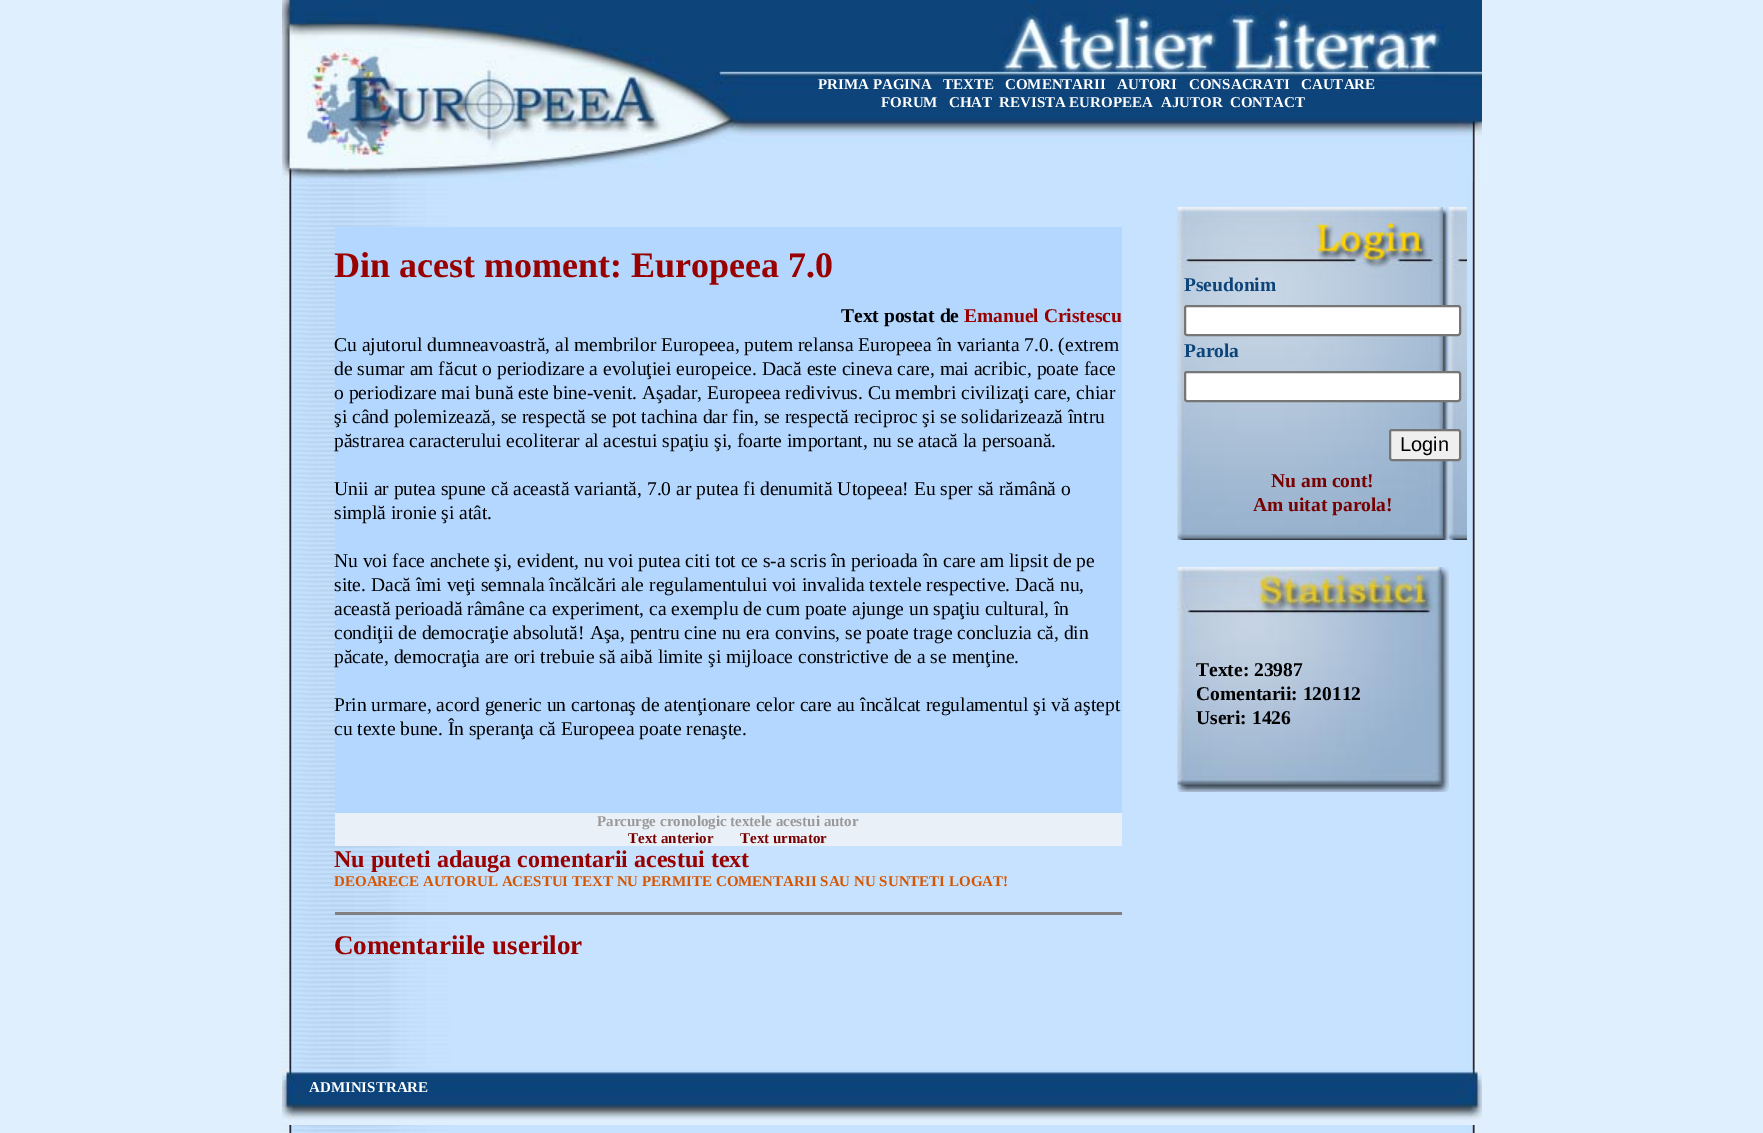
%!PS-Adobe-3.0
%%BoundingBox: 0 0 1763 1133
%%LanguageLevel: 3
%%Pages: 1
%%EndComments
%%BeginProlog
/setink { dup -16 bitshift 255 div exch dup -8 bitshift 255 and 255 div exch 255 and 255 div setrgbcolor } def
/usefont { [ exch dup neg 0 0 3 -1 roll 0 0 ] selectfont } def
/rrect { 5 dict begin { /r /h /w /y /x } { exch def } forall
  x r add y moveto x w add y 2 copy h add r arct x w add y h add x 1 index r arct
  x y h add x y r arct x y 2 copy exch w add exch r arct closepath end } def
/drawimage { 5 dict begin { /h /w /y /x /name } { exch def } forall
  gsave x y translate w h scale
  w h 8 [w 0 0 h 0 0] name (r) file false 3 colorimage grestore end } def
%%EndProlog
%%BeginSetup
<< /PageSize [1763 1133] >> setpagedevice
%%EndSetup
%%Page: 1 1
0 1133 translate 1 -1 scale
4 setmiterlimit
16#E0EFFE setink
0 0 1763 1133 rectfill
(img1.raw) 282 181 1197 952 drawimage
(img2.raw) 282 0 1200 182 drawimage
/LiberationSerif-Bold 15 usefont
16#FFFFFF setink
[
    [(PRIMA PAGINA) 818 89]
    [(TEXTE) 943 89]
    [(COMENTARII) 1005 89]
    [(AUTORI) 1117 89]
    [(CONSACRATI) 1189 89]
    [(CAUTARE) 1301 89]
    [(FORUM) 881 107]
    [(CHAT) 949 107]
    [(REVISTA EUROPEEA) 999 107]
    [(AJUTOR) 1161 107]
    [(CONTACT) 1230 107]
] { aload pop moveto show } forall
16#B3D7FF setink
335 227 787 586 rectfill
/LiberationSerif-Bold 36 usefont
16#990000 setink
334 277 moveto (Din acest moment: Europeea 7.0) show
/LiberationSerif-Bold 19.5 usefont
16#000000 setink
841 322 moveto (Text postat de) show
16#990000 setink
964 322 moveto (Emanuel Cristescu) show
/LiberationSerif-Regular 19.5 usefont
16#000000 setink
[
    [(Cu ajutorul dumneavoastră, al membrilor Europeea, putem relansa Europeea în varianta 7.0. \(extrem) 334 351]
    [(de sumar am făcut o periodizare a evoluţiei europeice. Dacă este cineva care, mai acribic, poate face) 334 375]
    [(o periodizare mai bună este bine-venit. Aşadar, Europeea redivivus. Cu membri civilizaţi care, chiar) 334 399]
    [(şi când polemizează, se respectă se pot tachina dar fin, se respectă reciproc şi se solidarizează întru) 334 423]
    [(păstrarea caracterului ecoliterar al acestui spaţiu şi, foarte important, nu se atacă la persoană.) 334 447]
    [(Unii ar putea spune că această variantă, 7.0 ar putea fi denumită Utopeea! Eu sper să rămână o) 334 495]
    [(simplă ironie şi atât.) 334 519]
    [(Nu voi face anchete şi, evident, nu voi putea citi tot ce s-a scris în perioada în care am lipsit de pe) 334 567]
    [(site. Dacă îmi veţi semnala încălcări ale regulamentului voi invalida textele respective. Dacă nu,) 334 591]
    [(această perioadă râmâne ca experiment, ca exemplu de cum poate ajunge un spaţiu cultural, în) 334 615]
    [(condiţii de democraţie absolută! Aşa, pentru cine nu era convins, se poate trage concluzia că, din) 334 639]
    [(păcate, democraţia are ori trebuie să aibă limite şi mijloace constrictive de a se menţine.) 334 663]
    [(Prin urmare, acord generic un cartonaş de atenţionare celor care au încălcat regulamentul şi vă aştept) 334 711]
    [(cu texte bune. În speranţa că Europeea poate renaşte.) 334 735]
] { aload pop moveto show } forall
16#EAF0F7 setink
335 813 787 33 rectfill
/LiberationSerif-Bold 15 usefont
16#999999 setink
597 826 moveto (Parcurge cronologic textele acestui autor) show
16#770000 setink
628 843 moveto (Text anterior) show
740 843 moveto (Text urmator) show
/LiberationSerif-Bold 24 usefont
16#990000 setink
334 867 moveto (Nu puteti adauga comentarii acestui text) show
/LiberationSerif-Bold 15 usefont
16#D55500 setink
334 886 moveto (DEOARECE AUTORUL ACESTUI TEXT NU PERMITE COMENTARII SAU NU SUNTETI LOGAT!) show
16#808080 setink
335 912 787 3 rectfill
/LiberationSerif-Bold 27 usefont
16#990000 setink
334 954 moveto (Comentariile userilor) show
(img3.raw) 1177 207 290 333 drawimage
/LiberationSerif-Bold 19.5 usefont
16#0D447A setink
1184 291 moveto (Pseudonim) show
16#FFFFFF setink
1185 306 275 29 2 rrect gsave fill grestore
16#767676 setink
2 setlinewidth
stroke
16#0D447A setink
1184 357 moveto (Parola) show
16#FFFFFF setink
1185 372 275 29 2 rrect gsave fill grestore
16#767676 setink
stroke
16#EFEFEF setink
1390 430 70 30 2 rrect gsave fill grestore
16#767676 setink
stroke
/LiberationSans-Regular 20 usefont
16#000000 setink
1400 451 moveto (Login) show
/LiberationSerif-Bold 19.5 usefont
16#770000 setink
1271 487 moveto (Nu am cont!) show
1253 511 moveto (Am uitat parola!) show
(img4.raw) 1177 567 272 225 drawimage
16#000000 setink
[
    [(Texte: 23987) 1196 676]
    [(Comentarii: 120112) 1196 700]
    [(Useri: 1426) 1196 724]
] { aload pop moveto show } forall
(img5.raw) 282 1069 1200 56 drawimage
/LiberationSerif-Bold 15 usefont
16#FFFFFF setink
309 1092 moveto (ADMINISTRARE) show
showpage
%%EOF
